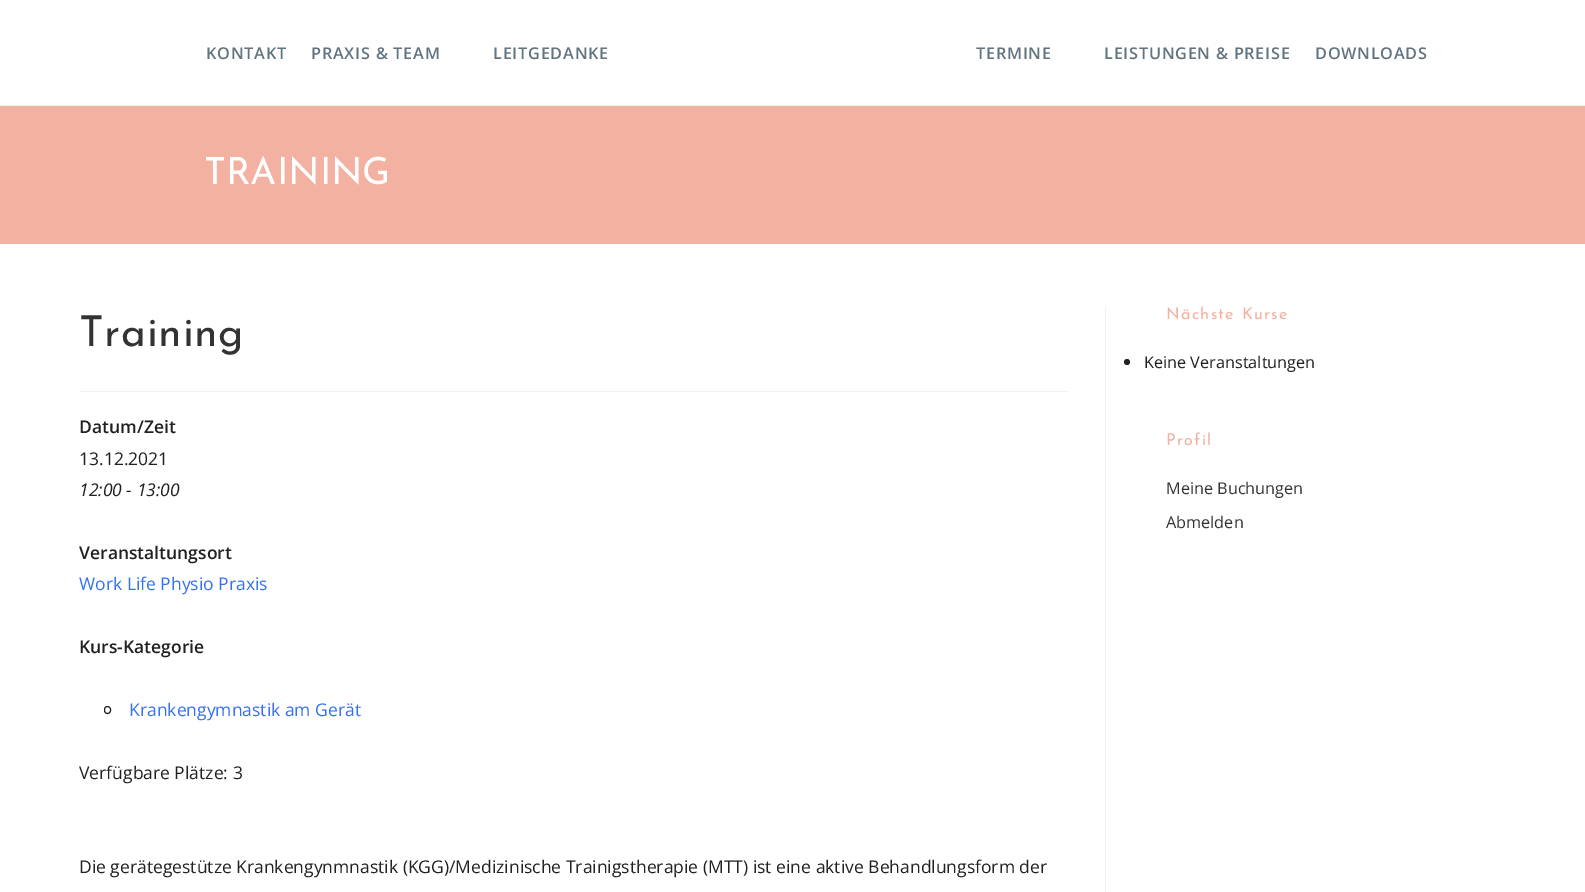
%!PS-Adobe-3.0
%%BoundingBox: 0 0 1585 892
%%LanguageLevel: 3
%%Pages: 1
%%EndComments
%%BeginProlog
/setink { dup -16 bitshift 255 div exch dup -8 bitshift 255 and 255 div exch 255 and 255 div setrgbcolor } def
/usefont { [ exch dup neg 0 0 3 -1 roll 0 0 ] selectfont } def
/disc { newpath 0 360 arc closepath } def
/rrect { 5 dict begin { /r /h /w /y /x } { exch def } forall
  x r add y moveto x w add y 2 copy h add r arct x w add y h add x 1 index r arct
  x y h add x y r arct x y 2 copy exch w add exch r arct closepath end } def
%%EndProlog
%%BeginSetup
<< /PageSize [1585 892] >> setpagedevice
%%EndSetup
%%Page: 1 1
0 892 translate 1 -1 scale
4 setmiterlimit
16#FFFFFF setink
0 0 1585 892 rectfill
16#F1F1F1 setink
0 105 1585 1 rectfill
/OpenSans-SemiBold 16.25 usefont
16#627480 setink
206 59 moveto 0.75 0 (KONTAKT) ashow
311 59 moveto 0.75 0 (PRAXIS & TEAM) ashow
493 59 moveto 0.75 0 (LEITGEDANKE) ashow
976 59 moveto 0.75 0 (TERMINE) ashow
1104 59 moveto 0.75 0 (LEISTUNGEN & PREISE) ashow
1315 59 moveto 0.75 0 (DOWNLOADS) ashow
16#F2B1A1 setink
0 106 1585 138 rectfill
/JosefinSans-Regular 37.5 usefont
16#FFFFFF setink
204 184 moveto (TRAINING) show
16#F1F1F1 setink
1105 306 1 586 rectfill
79 391 989 1 rectfill
/JosefinSans-Regular 42.5 usefont
16#333333 setink
79 346 moveto 0.75 0 (Training) ashow
/OpenSans-SemiBold 17.5 usefont
16#212121 setink
79 433 moveto (Datum/Zeit) show
/OpenSans-Regular 17.5 usefont
79 465 moveto (13.12.2021) show
/OpenSans-Italic 17.5 usefont
79 496 moveto (12:00 - 13:00) show
/OpenSans-SemiBold 17.5 usefont
79 559 moveto (Veranstaltungsort) show
/OpenSans-Regular 17.5 usefont
16#3372F0 setink
79 590 moveto (Work Life Physio Praxis) show
/OpenSans-SemiBold 17.5 usefont
16#212121 setink
79 653 moveto (Kurs-Kategorie) show
104.5 706.5 6 7 3 rrect stroke
/OpenSans-Regular 17.5 usefont
16#3372F0 setink
129 716 moveto (Krankengymnastik am Gerät) show
16#212121 setink
79 779 moveto (Verfügbare Plätze: 3) show
79 873 moveto (Die gerätegestütze Krankengynmnastik \(KGG\)/Medizinische Trainigstherapie \(MTT\) ist eine aktive Behandlungsform der) show
/JosefinSans-Regular 16.25 usefont
16#F2B1A1 setink
1166 319 moveto 1.25 0 (Nächste Kurse) ashow
16#212121 setink
1127 362 3 disc fill
/OpenSans-Regular 16.25 usefont
1144 368 moveto (Keine Veranstaltungen) show
/JosefinSans-Regular 16.25 usefont
16#F2B1A1 setink
1166 445 moveto 1.25 0 (Profil) ashow
/OpenSans-Regular 16.25 usefont
16#333333 setink
1166 494 moveto (Meine Buchungen) show
1166 528 moveto (Abmelden) show
showpage
%%EOF
